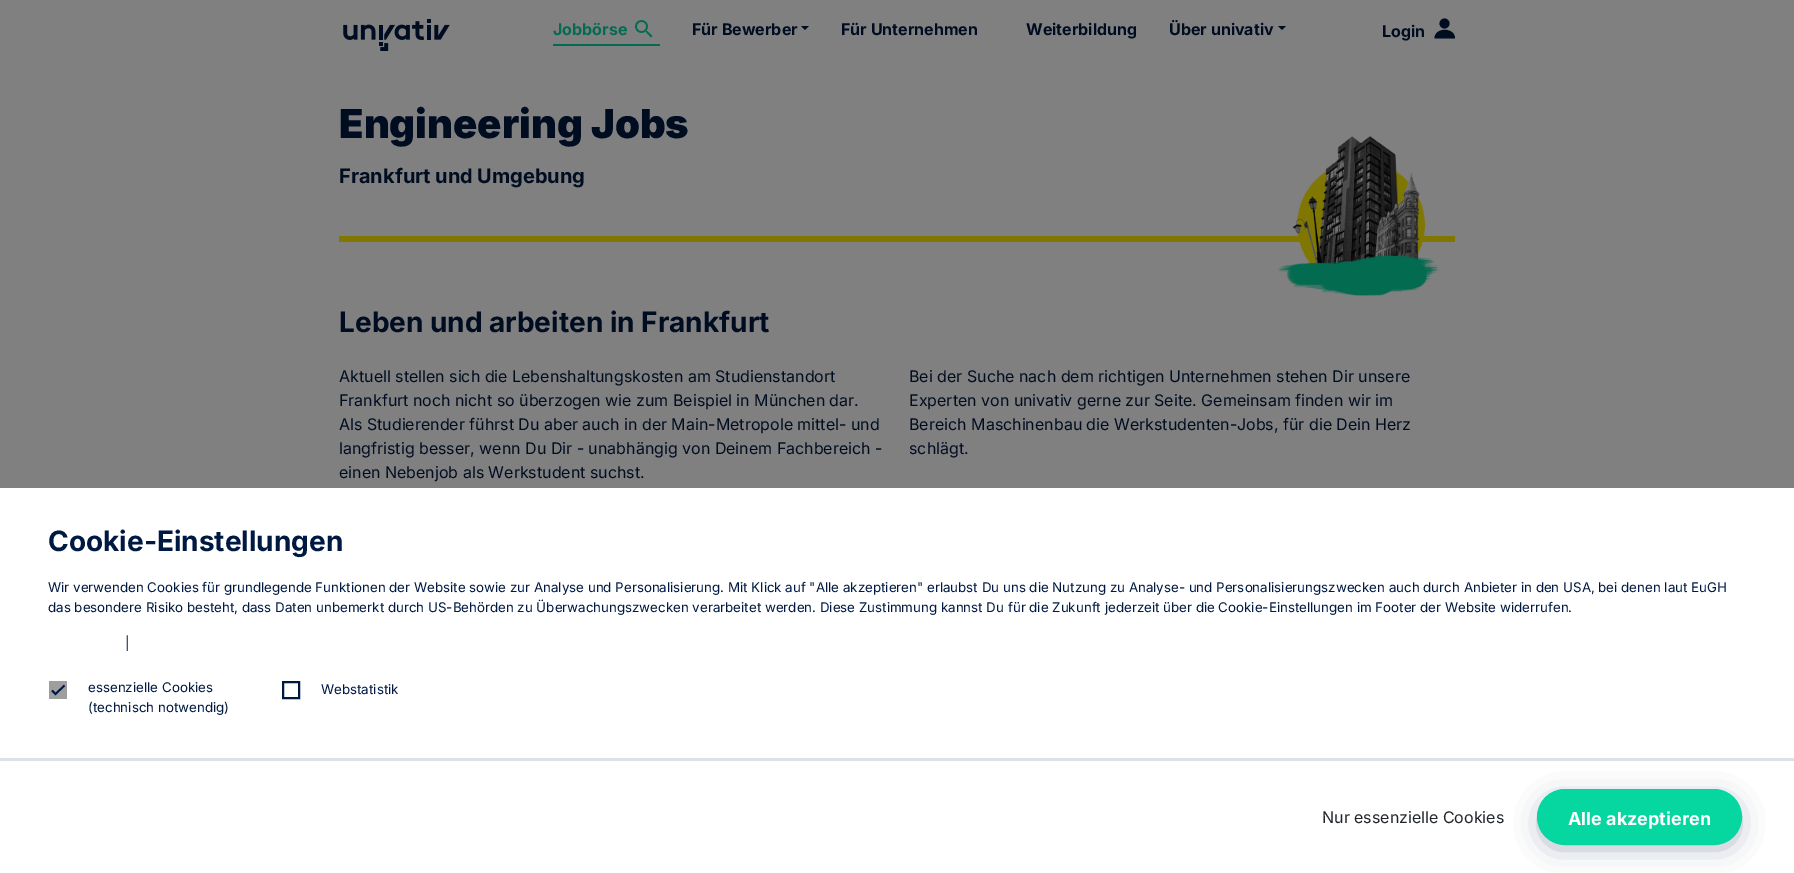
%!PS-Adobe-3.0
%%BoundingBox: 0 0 1794 873
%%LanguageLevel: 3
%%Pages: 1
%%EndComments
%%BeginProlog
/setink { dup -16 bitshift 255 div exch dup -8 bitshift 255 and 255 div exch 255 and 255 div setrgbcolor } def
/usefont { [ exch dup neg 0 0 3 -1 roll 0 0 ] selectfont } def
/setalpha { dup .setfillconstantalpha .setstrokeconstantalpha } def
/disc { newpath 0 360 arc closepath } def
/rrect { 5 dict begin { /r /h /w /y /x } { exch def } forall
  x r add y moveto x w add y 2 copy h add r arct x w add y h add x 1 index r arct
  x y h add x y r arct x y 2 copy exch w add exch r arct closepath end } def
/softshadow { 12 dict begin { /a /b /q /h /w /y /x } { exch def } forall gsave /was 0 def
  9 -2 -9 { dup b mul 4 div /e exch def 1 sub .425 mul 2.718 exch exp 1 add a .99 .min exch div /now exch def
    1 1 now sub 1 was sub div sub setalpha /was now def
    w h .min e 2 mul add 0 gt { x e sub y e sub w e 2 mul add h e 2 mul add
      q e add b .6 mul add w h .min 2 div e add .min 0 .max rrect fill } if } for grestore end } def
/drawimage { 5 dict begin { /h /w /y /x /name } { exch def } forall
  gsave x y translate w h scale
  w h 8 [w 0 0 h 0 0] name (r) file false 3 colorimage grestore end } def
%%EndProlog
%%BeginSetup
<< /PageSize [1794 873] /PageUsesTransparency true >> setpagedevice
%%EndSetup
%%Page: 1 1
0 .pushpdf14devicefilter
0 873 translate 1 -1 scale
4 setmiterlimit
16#808080 setink
0 0 1794 873 rectfill
(img1.raw) 343 19 107 32 drawimage
16#036B50 setink
553 44 107 2 rectfill
/Inter-Bold 16 usefont
553 35 moveto (Jobbörse) show
(img2.raw) 635 20 18 18 drawimage
16#000D21 setink
692 35 moveto (Für Bewerber) show
801 26 moveto 809 26 lineto 805 30 lineto closepath fill
[
    [(Für Unternehmen) 841 35]
    [(Weiterbildung) 1026 35]
    [(Über univativ) 1169 35]
] { aload pop moveto show } forall
1278 26 moveto 1286 26 lineto 1282 30 lineto closepath fill
1382 37 moveto (Login) show
1444.5 23.5 5 disc fill
1455 38.5 moveto 1455 27 1434.5 27 1434.5 38.5 curveto closepath eofill
/Inter-Black 40 usefont
339 138 moveto (Engineering Jobs) show
/Inter-Bold 20 usefont
339 183 moveto (Frankfurt und Umgebung) show
16#807600 setink
339 236 1116 6 rectfill
(img3.raw) 1278 136 161 160 drawimage
/Inter-Bold 28 usefont
16#000D21 setink
339 332 moveto (Leben und arbeiten in Frankfurt) show
/Inter-Regular 16 usefont
[
    [(Aktuell stellen sich die Lebenshaltungskosten am Studienstandort) 339 382]
    [(Frankfurt noch nicht so überzogen wie zum Beispiel in München dar.) 339 406]
    [(Als Studierender führst Du aber auch in der Main-Metropole mittel- und) 339 430]
    [(langfristig besser, wenn Du Dir - unabhängig von Deinem Fachbereich -) 339 454]
    [(einen Nebenjob als Werkstudent suchst.) 339 478]
    [(Bei der Suche nach dem richtigen Unternehmen stehen Dir unsere) 909 382]
    [(Experten von univativ gerne zur Seite. Gemeinsam finden wir im) 909 406]
    [(Bereich Maschinenbau die Werkstudenten-Jobs, für die Dein Herz) 909 430]
    [(schlägt.) 909 454]
] { aload pop moveto show } forall
16#FFFFFF setink
0 488 1794 385 rectfill
/Inter-Bold 28 usefont
16#001942 setink
48 551 moveto (Cookie-Einstellungen) show
/Inter-Regular 13.33 usefont
[
    [(Wir verwenden Cookies für grundlegende Funktionen der Website sowie zur Analyse und Personalisierung. Mit Klick auf "Alle akzeptieren" erlaubst Du uns die Nutzung zu Analyse- und Personalisierungszwecken auch durch Anbieter in den USA, bei denen laut EuGH) 48 592]
    [(das besondere Risiko besteht, dass Daten unbemerkt durch US-Behörden zu Überwachungszwecken verarbeitet werden. Diese Zustimmung kannst Du für die Zukunft jederzeit über die Cookie-Einstellungen im Footer der Website widerrufen.) 48 612]
    [(|) 125 648]
] { aload pop moveto show } forall
16#9E9E9E setink
49 681 18 18 rectfill
16#001942 setink
1.8 setlinewidth
52 690.5 moveto 55.5 694 lineto 64.5 685.5 lineto stroke
88 692 moveto (essenzielle Cookies) show
88 712 moveto (\(technisch notwendig\)) show
2 setlinewidth
283 682 16 16 rectstroke
321 694 moveto (Webstatistik) show
16#DEE2E6 setink
0 758 1794 3 rectfill
/Inter-Regular 16 usefont
16#212529 setink
1322 823 moveto (Nur essenzielle Cookies) show
16#001942 setink
1547 805 185 36 18 15 0.5 softshadow
16#06D6A0 setink
1537.5 789.5 204 55 27.5 rrect gsave fill grestore
1 setlinewidth
stroke
/Inter-Bold 18 usefont
16#FFFFFF setink
1568 825 moveto (Alle akzeptieren) show
.poppdf14devicefilter showpage
%%EOF
